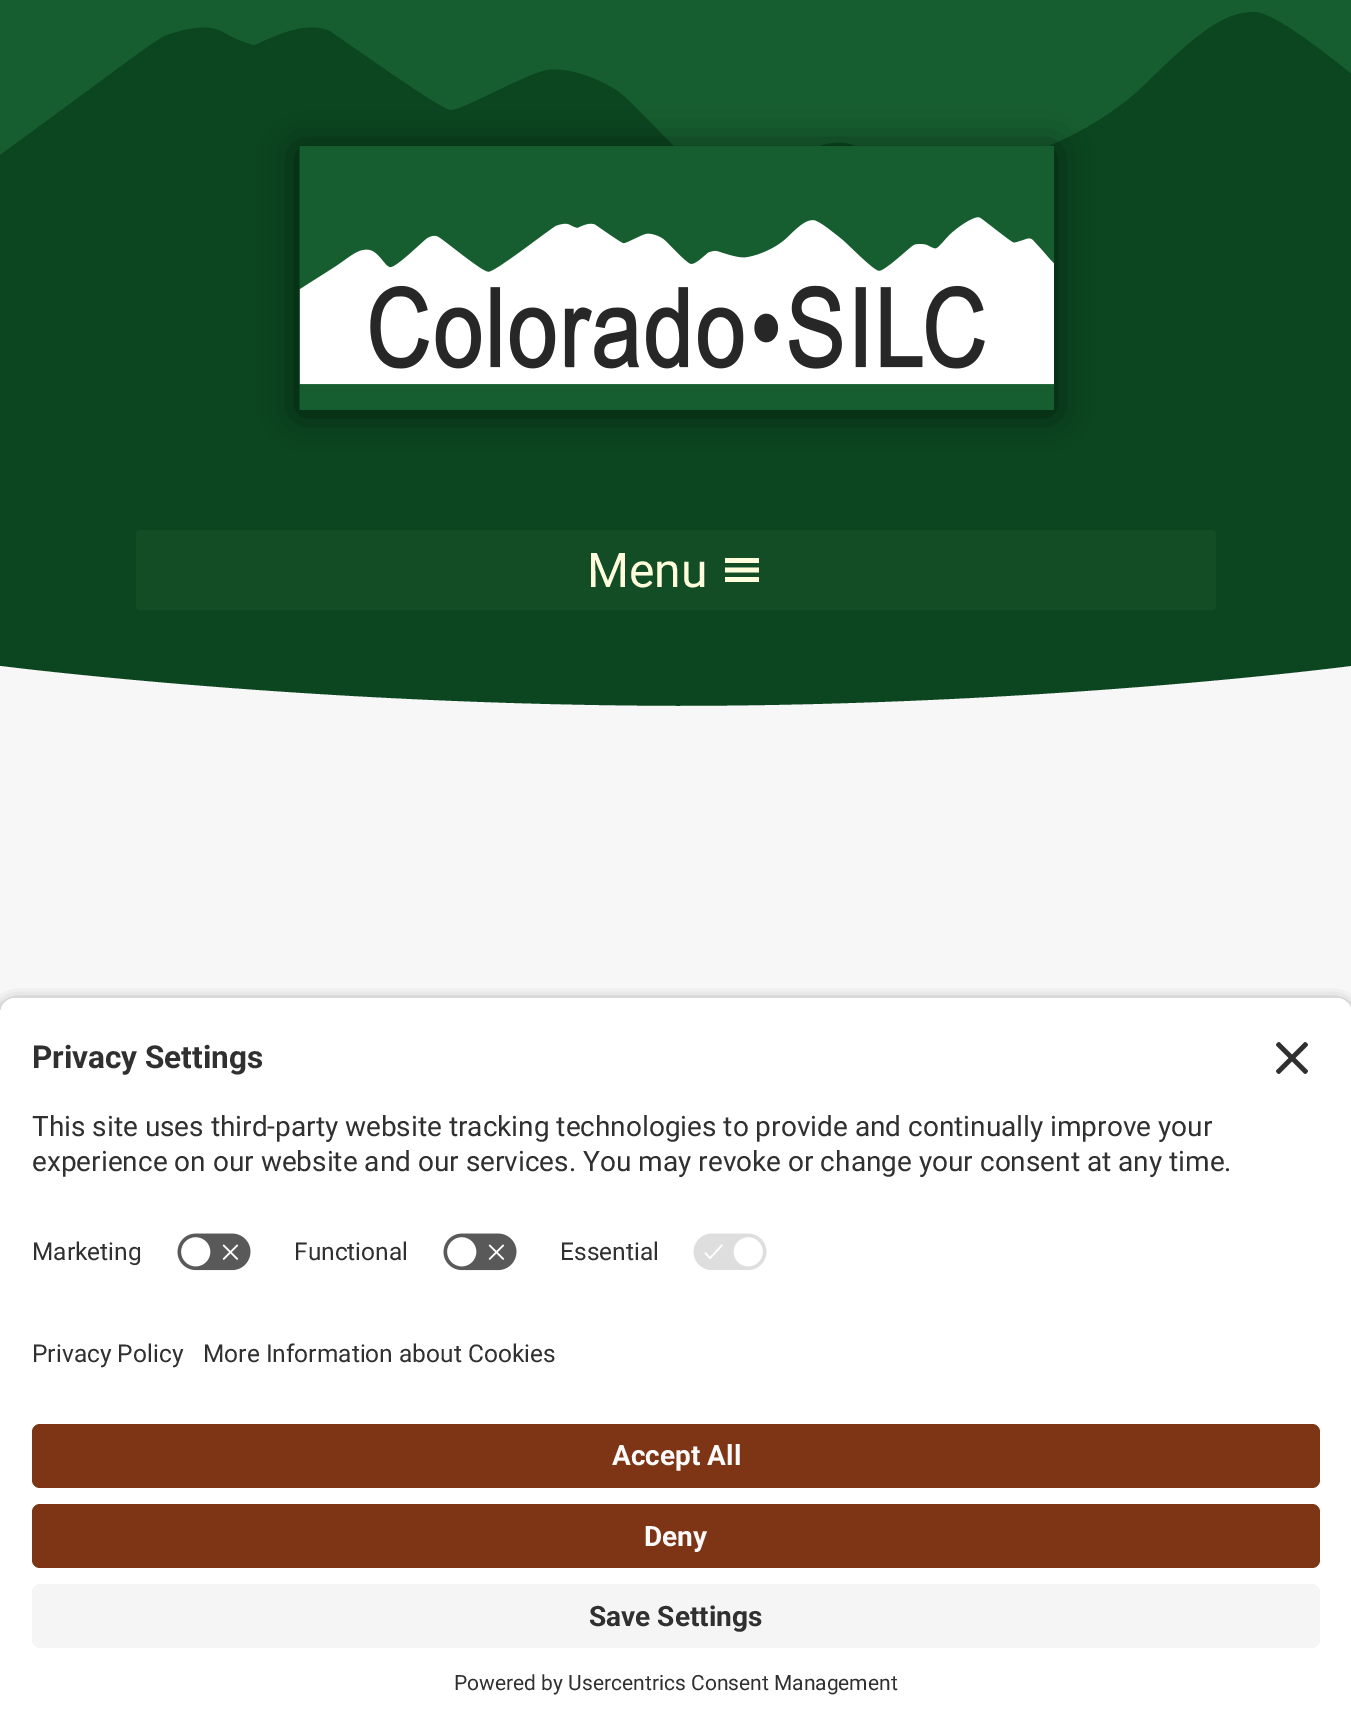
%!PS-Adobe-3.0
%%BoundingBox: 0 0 1351 1728
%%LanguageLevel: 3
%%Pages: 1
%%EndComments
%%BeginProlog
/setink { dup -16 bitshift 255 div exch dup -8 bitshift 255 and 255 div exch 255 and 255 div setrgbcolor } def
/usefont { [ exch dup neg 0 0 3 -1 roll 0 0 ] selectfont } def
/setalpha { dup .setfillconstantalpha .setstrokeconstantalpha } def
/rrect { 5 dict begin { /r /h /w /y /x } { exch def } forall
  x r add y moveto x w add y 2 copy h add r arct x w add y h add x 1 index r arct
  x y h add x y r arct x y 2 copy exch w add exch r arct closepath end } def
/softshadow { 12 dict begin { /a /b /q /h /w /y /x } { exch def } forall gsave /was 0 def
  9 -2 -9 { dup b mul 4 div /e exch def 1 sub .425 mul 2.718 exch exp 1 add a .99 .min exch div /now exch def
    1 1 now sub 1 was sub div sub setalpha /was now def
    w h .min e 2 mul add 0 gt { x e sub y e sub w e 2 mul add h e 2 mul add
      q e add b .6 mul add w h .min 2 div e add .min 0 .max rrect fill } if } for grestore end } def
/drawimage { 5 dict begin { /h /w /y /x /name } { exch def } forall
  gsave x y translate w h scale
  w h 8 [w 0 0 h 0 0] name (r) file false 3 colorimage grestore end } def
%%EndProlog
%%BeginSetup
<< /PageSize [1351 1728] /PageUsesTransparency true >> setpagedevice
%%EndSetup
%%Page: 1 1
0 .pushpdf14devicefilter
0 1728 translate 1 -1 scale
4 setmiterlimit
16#F7F7F7 setink
0 0 1351 1728 rectfill
16#165E2F setink
0 0 1351 155 rectfill
(img1.raw) 0 12 1351 694 drawimage
16#000000 setink
298 150 756 264 0 18 0.6 softshadow
(img2.raw) 299 146 755 264 drawimage
16#124D26 setink
136 530 1080 80 4 rrect fill
/Roboto-Regular 48 usefont
16#FFFFDD setink
587 587 moveto (Menu) show
725 582 moveto 759 582 lineto 759 577 lineto 725 577 lineto closepath 725 558 moveto 725 563 lineto 759 563 lineto 759 558 lineto closepath 725 572.5 moveto 759 572.5 lineto 759 567.5 lineto 725 567.5 lineto closepath fill
16#F7F7F7 setink
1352 706 moveto 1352 666 lineto 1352 666 1049 706 676 706 curveto 303 705 0 666 0 666 curveto 0 706 lineto closepath fill
16#000000 setink
0 1004 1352 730 16 7 0.8 softshadow
16#FFFFFF setink
16 998 moveto 1336 998 lineto 1345 998 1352 1005 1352 1014 curveto 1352 1308 lineto 0 1308 lineto 0 1014 lineto 0 1005 7 998 16 998 curveto closepath fill
16 998 moveto 1336 998 lineto 1345 998 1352 1005 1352 1014 curveto 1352 1220 lineto 0 1220 lineto 0 1014 lineto 0 1005 7 998 16 998 curveto closepath fill
/Roboto-Bold 31.5 usefont
16#303030 setink
32 1068 moveto (Privacy Settings) show
(img3.raw) 1276 1042 32 32 drawimage
/Roboto-Regular 28 usefont
32 1136 moveto (This site uses third-party website tracking technologies to provide and continually improve your) show
32 1171 moveto (experience on our website and our services. You may revoke or change your consent at any time.) show
/Roboto-Regular 24.5 usefont
32 1260 moveto (Marketing) show
(img4.raw) 177 1233 74 38 drawimage
294 1260 moveto (Functional) show
(img4.raw) 443 1233 74 38 drawimage
560 1260 moveto (Essential) show
(img5.raw) 693 1233 74 37 drawimage
16#FFFFFF setink
0 1308 1351 420 rectfill
16#303030 setink
32 1362 moveto (Privacy Policy) show
203 1362 moveto (More Information about Cookies) show
16#7D3516 setink
32 1424 1288 64 8 rrect fill
/Roboto-Bold 28 usefont
16#FAFAFA setink
612 1465 moveto (Accept All) show
16#7D3516 setink
32 1504 1288 64 8 rrect fill
16#FAFAFA setink
644 1546 moveto (Deny) show
16#F5F5F5 setink
32 1584 1288 64 8 rrect fill
16#303030 setink
589 1626 moveto (Save Settings) show
/Roboto-Regular 21 usefont
454 1690 moveto (Powered by Usercentrics Consent Management) show
.poppdf14devicefilter showpage
%%EOF
